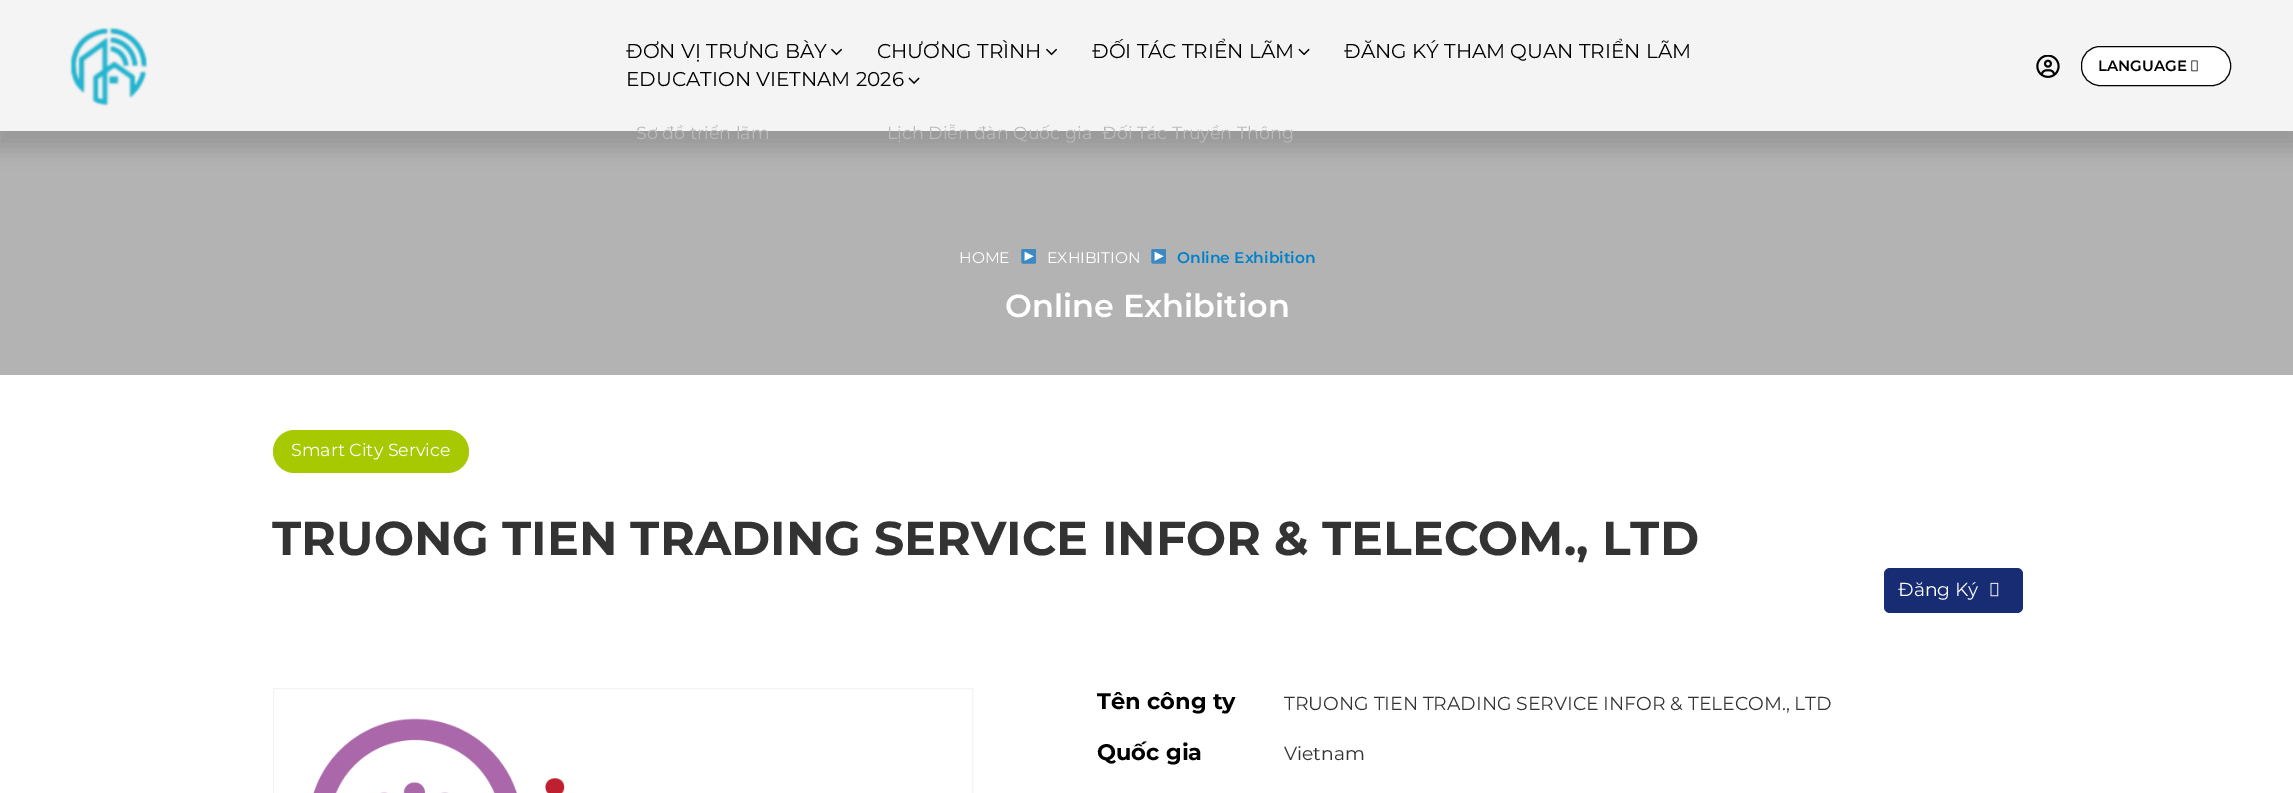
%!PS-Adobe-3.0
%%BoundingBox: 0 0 2293 793
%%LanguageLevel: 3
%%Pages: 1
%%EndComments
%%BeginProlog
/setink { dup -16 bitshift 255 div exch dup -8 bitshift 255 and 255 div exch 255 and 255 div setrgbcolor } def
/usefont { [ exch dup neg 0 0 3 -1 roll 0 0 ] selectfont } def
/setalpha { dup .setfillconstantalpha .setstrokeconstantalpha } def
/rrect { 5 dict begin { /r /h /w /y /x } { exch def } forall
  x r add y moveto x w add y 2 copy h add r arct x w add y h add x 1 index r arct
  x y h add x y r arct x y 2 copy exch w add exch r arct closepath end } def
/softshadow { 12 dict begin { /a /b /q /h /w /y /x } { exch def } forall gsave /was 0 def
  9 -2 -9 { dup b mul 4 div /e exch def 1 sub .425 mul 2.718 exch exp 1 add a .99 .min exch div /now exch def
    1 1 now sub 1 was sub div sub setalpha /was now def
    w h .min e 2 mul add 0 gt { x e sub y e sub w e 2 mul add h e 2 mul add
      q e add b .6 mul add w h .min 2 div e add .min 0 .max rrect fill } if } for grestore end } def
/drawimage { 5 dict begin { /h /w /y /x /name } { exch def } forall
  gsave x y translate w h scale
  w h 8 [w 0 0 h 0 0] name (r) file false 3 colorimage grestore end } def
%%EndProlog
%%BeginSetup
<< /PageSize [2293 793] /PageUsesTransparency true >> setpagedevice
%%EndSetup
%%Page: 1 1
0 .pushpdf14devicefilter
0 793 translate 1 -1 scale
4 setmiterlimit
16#FFFFFF setink
0 0 2293 793 rectfill
16#B3B3B3 setink
0 131 2293 244 rectfill
16#000000 setink
-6 6 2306 144 0 9.5 0.15 softshadow
16#F4F4F4 setink
0 0 2293 131 rectfill
(img1.raw) 69 27 79 80 drawimage
/Montserrat-Regular 20 usefont
16#000000 setink
626 58 moveto (ĐƠN VỊ TRƯNG BÀY) show
(img2.raw) 831 48 11 8 drawimage
/Montserrat-Regular 17.5 usefont
16#BABABA setink
636 139 moveto (Sơ đồ triển lãm) show
/Montserrat-Regular 20 usefont
16#000000 setink
877 58 moveto (CHƯƠNG TRÌNH) show
(img2.raw) 1046 48 11 8 drawimage
/Montserrat-Regular 17.5 usefont
16#BABABA setink
887 139 moveto (Lịch Diễn đàn Quốc gia) show
/Montserrat-Regular 20 usefont
16#000000 setink
1092 58 moveto (ĐỐI TÁC TRIỂN LÃM) show
(img3.raw) 1298 48 12 8 drawimage
/Montserrat-Regular 17.5 usefont
16#BABABA setink
1102 139 moveto (Đối Tác Truyền Thông) show
/Montserrat-Regular 20 usefont
16#000000 setink
1344 58 moveto (ĐĂNG KÝ THAM QUAN TRIỂN LÃM) show
626 86 moveto (EDUCATION VIETNAM 2026) show
(img4.raw) 908 77 12 7 drawimage
(img5.raw) 2036 55 24 23 drawimage
16#FFFFFF setink
2081.5 46.5 149 39 18.5 rrect gsave fill grestore
16#000000 setink
stroke
/Montserrat-SemiBold 15 usefont
2098 71 moveto (LANGUAGE) show
(img6.raw) 2191 60 7 12 drawimage
/Montserrat-Regular 15.5 usefont
16#FFFFFF setink
959 263 moveto (HOME) show
(img7.raw) 1021 249 15 15 drawimage
1047 263 moveto (EXHIBITION) show
(img7.raw) 1151 249 15 15 drawimage
/Montserrat-SemiBold 15.5 usefont
16#0081CC setink
1177 263 moveto (Online Exhibition) show
/Montserrat-SemiBold 31.9 usefont
16#FFFFFF setink
1005 317 moveto (Online Exhibition) show
16#A6C901 setink
273 430 196 43 21.5 rrect fill
/Montserrat-Regular 17.5 usefont
16#FFFFFF setink
291 456 moveto (Smart City Service) show
/Montserrat-Bold 47.45 usefont
16#333333 setink
272 555 moveto (TRUONG TIEN TRADING SERVICE INFOR & TELECOM., LTD) show
16#172C72 setink
1884 568 139 45 6 rrect fill
/Montserrat-Regular 18.75 usefont
16#FFFFFF setink
1898 596 moveto (Đăng Ký) show
(img8.raw) 1990 582 9 15 drawimage
16#F3F3F3 setink
273.5 688.5 699 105 rectstroke
(img9.raw) 313 718 252 75 drawimage
/Montserrat-Bold 22.5 usefont
16#000000 setink
1097 709 moveto (Tên công ty) show
/Montserrat-Regular 18.75 usefont
16#333333 setink
1284 710 moveto (TRUONG TIEN TRADING SERVICE INFOR & TELECOM., LTD) show
/Montserrat-Bold 22.5 usefont
16#000000 setink
1097 760 moveto (Quốc gia) show
/Montserrat-Regular 18.75 usefont
16#333333 setink
1284 760 moveto (Vietnam) show
.poppdf14devicefilter showpage
%%EOF
